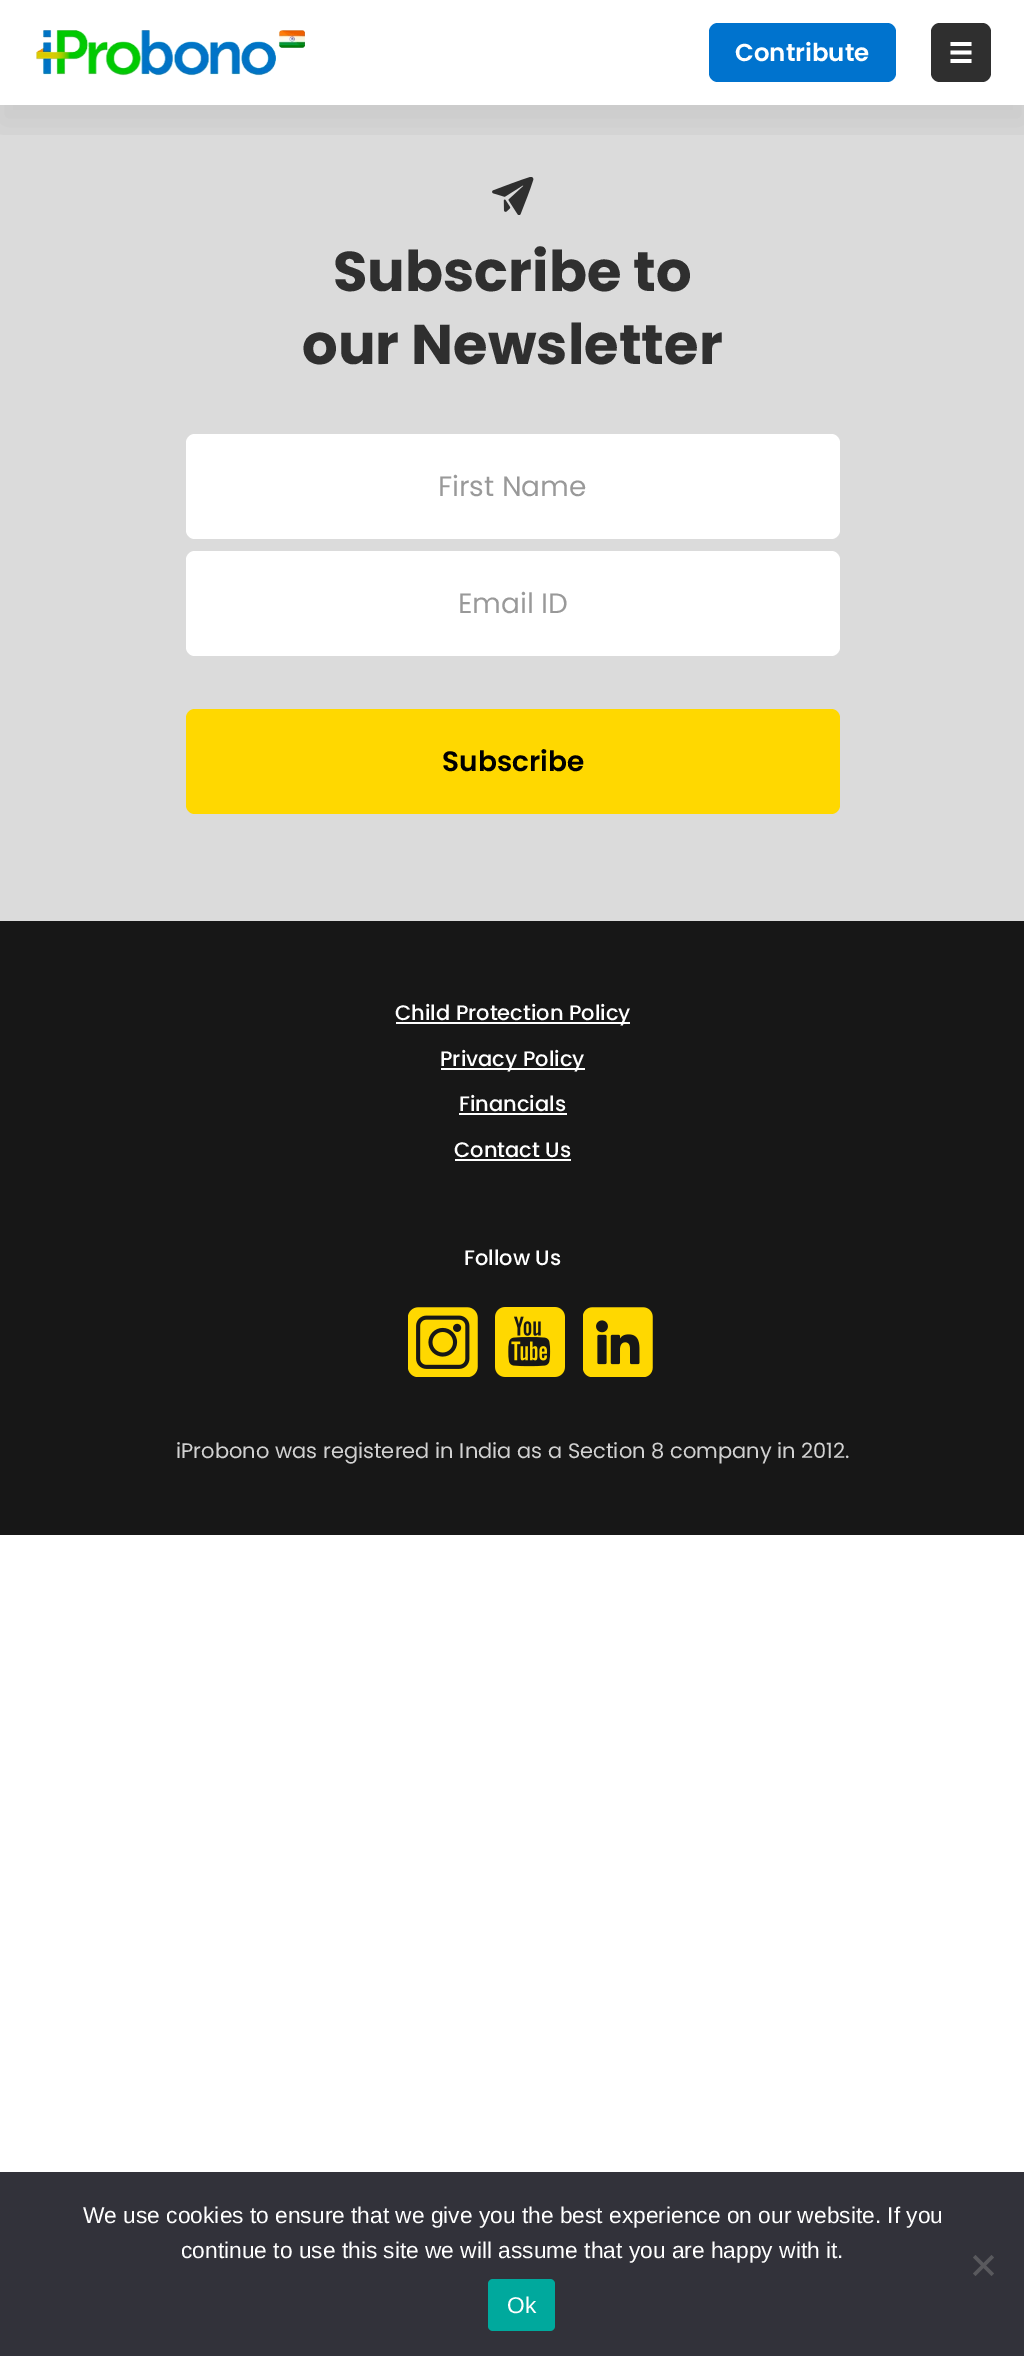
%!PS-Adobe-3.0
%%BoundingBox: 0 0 1024 2356
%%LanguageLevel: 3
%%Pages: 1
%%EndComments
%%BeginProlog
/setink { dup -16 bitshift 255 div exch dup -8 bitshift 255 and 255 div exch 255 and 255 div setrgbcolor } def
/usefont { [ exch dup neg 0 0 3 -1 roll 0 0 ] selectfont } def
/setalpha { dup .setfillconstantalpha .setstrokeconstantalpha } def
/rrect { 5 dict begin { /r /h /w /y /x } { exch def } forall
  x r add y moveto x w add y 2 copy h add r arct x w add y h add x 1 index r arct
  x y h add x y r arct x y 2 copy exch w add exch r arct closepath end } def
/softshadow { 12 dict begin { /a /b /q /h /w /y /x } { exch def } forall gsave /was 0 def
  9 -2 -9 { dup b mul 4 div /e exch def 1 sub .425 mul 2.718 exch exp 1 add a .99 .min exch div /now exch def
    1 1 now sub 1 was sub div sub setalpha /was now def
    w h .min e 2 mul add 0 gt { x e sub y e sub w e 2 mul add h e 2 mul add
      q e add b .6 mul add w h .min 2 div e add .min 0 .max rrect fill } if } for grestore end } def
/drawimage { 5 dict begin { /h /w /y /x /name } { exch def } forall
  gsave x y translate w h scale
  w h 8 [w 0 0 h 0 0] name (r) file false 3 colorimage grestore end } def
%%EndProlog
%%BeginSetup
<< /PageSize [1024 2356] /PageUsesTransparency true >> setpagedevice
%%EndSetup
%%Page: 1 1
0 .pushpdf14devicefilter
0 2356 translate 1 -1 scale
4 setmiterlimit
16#FFFFFF setink
0 0 1024 2356 rectfill
16#DBDBDB setink
0 105 1024 816 rectfill
gsave
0 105 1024 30 rectclip
16#000000 setink
0 18 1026 105 0 17.5 0.08 softshadow
grestore
(img1.raw) 36 30 269 46 drawimage
16#0073CE setink
709 23 187 59 9 rrect fill
/Poppins-SemiBold 24.5 usefont
16#FFFFFF setink
735 61 moveto (Contribute) show
16#2F2F2F setink
931 23 60 59 9 rrect fill
16#FFFFFF setink
950.5 42 moveto 950.5 46 lineto 971.5 46 lineto 971.5 42 lineto closepath 950.5 50.5 moveto 950.5 54.5 lineto 971.5 54.5 lineto 971.5 50.5 lineto closepath 950.5 59 moveto 950.5 63 lineto 971.5 63 lineto 971.5 59 lineto closepath fill
(img2.raw) 492 177 42 38 drawimage
/Poppins-Bold 56 usefont
16#2F2F2F setink
333 291 moveto (Subscribe to) show
302 364 moveto (our Newsletter) show
16#FFFFFF setink
186 434 654 105 9 rrect fill
/Poppins-Regular 28 usefont
16#999999 setink
438 496 moveto (First Name) show
16#FFFFFF setink
186 551 654 105 9 rrect fill
16#999999 setink
458 613 moveto (Email ID) show
16#FFD800 setink
186 709 654 105 9 rrect fill
/Poppins-SemiBold 28 usefont
16#000000 setink
442 771 moveto (Subscribe) show
16#171717 setink
0 921 1024 614 rectfill
16#FFFFFF setink
396 1022 234 2 rectfill
/Poppins-Medium 21 usefont
395 1020 moveto (Child Protection Policy) show
441 1068 144 2 rectfill
440 1066 moveto (Privacy Policy) show
459 1111 moveto (Financials) show
459 1113 108 2 rectfill
454 1157 moveto (Contact Us) show
455 1159 116 2 rectfill
464 1265 moveto (Follow Us) show
(img3.raw) 408 1307 70 70 drawimage
(img4.raw) 495 1307 70 70 drawimage
(img5.raw) 583 1307 70 70 drawimage
/Poppins-Regular 21 usefont
16#D1D1D1 setink
176 1458 moveto (iProbono was registered in India as a Section 8 company in 2012.) show
16#32323A setink
0 2172 1024 184 rectfill
/LiberationSans-Regular 22.75 usefont
16#FFFFFF setink
83 2223 moveto (We use cookies to ensure that we give you the best experience on our website. If you) show
181 2258 moveto (continue to use this site we will assume that you are happy with it.) show
16#59595D setink
991.5 2255 moveto 994 2257.5 lineto 975.5 2276 lineto 973 2273.5 lineto closepath fill
973 2257.5 moveto 975.5 2255 lineto 994 2273.5 lineto 991.5 2276 lineto closepath fill
16#00A99D setink
488 2279 67 52 5 rrect fill
16#FFFFFF setink
507 2313 moveto (Ok) show
.poppdf14devicefilter showpage
%%EOF
